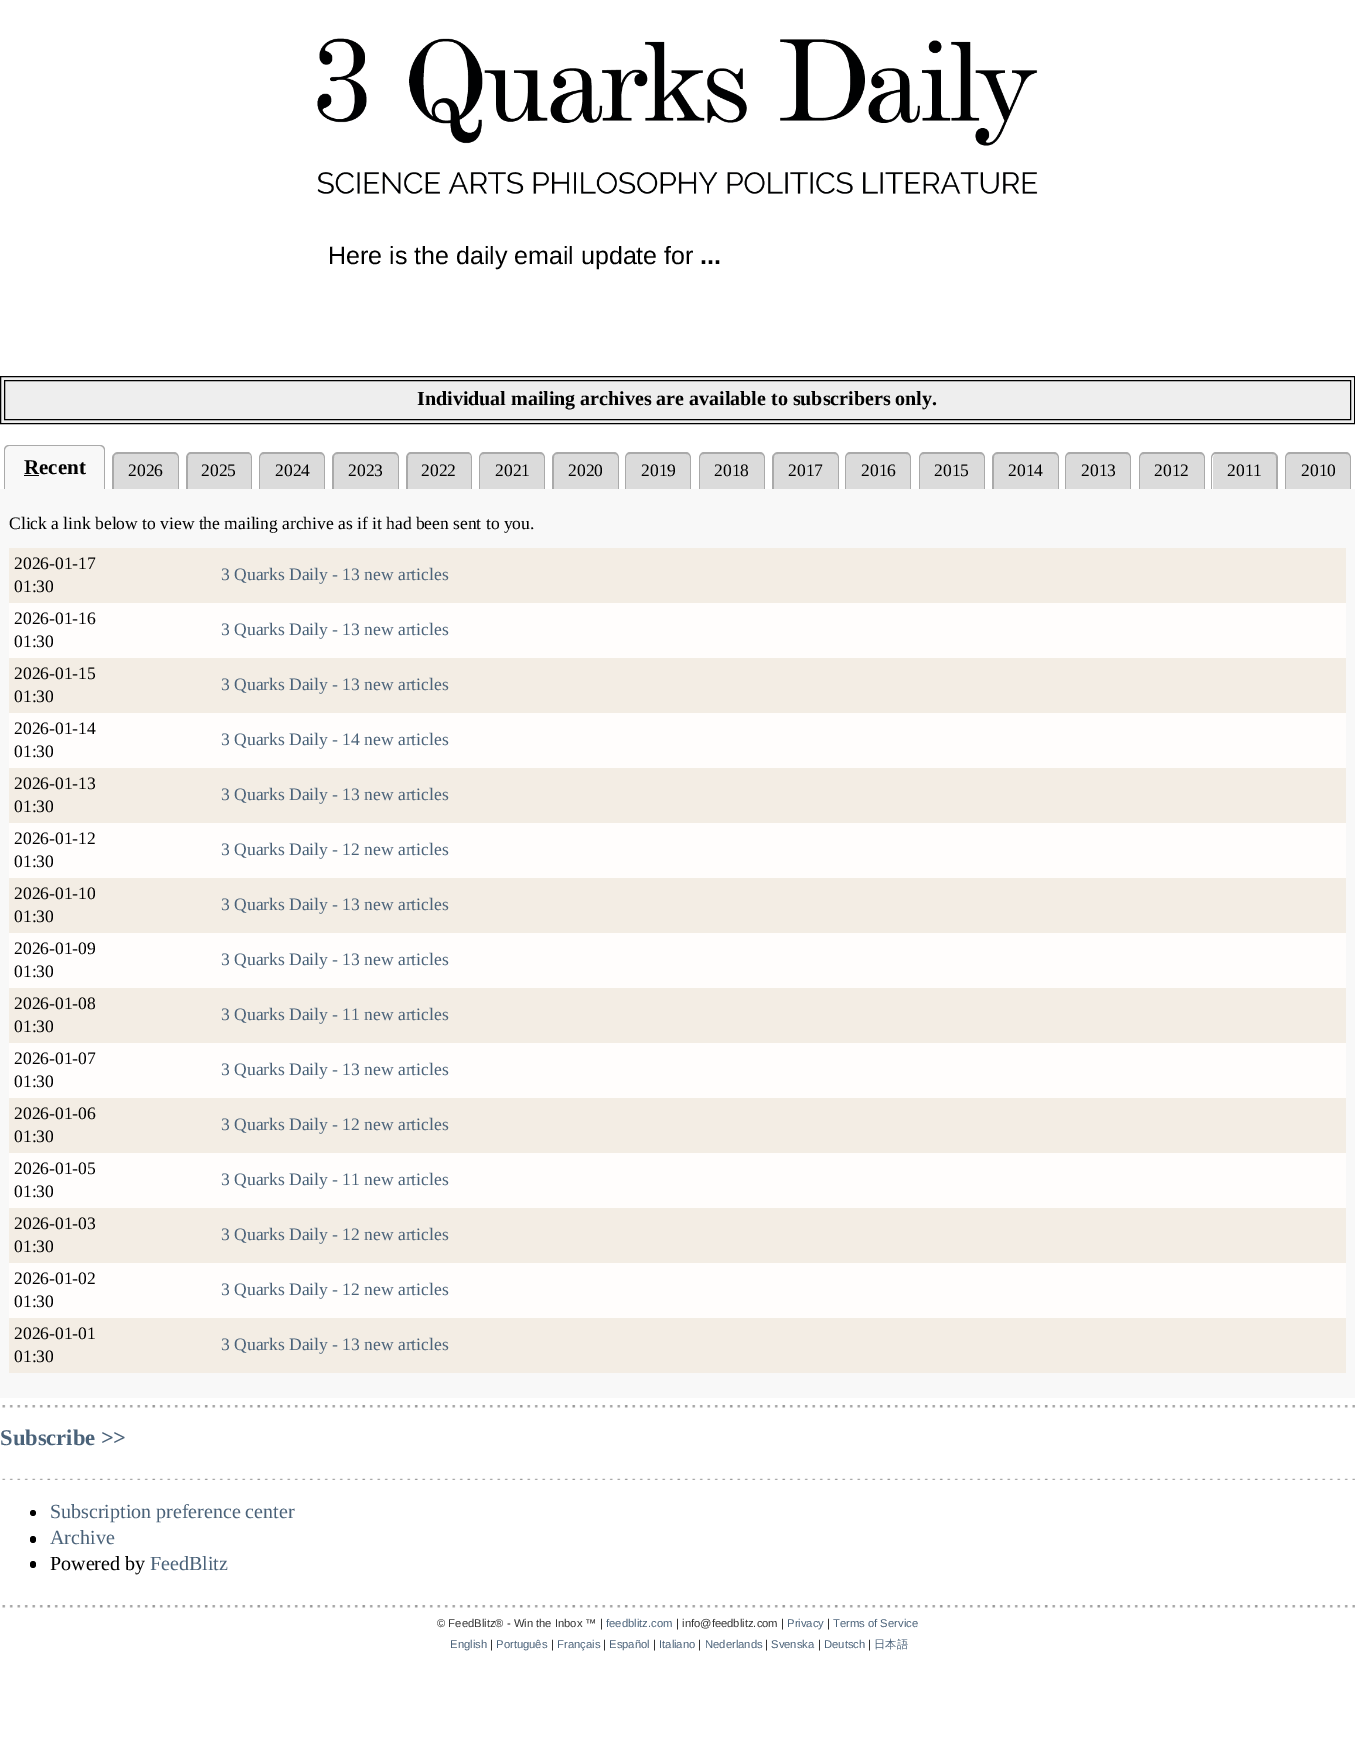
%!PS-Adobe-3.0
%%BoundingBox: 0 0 1355 1758
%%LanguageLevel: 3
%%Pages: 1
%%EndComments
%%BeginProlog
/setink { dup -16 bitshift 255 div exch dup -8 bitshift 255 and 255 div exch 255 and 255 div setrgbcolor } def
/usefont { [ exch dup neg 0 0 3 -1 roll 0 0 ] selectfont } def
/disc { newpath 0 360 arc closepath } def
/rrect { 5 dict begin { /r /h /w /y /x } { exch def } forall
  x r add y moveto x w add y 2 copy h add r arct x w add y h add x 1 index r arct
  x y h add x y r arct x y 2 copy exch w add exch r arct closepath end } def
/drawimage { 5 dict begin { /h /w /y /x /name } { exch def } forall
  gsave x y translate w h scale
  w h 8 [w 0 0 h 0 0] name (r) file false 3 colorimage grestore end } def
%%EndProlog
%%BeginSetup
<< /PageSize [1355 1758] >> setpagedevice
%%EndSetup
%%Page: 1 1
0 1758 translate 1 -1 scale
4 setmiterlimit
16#FFFFFF setink
0 0 1355 1758 rectfill
(img1.raw) 317 38 721 156 drawimage
/LiberationSans-Regular 25 usefont
16#000000 setink
328 264 moveto (Here is the daily email update for) show
/LiberationSans-Bold 25 usefont
700 264 moveto (...) show
16#EEEEEE setink
0.5 376.5 moveto 1354.5 376.5 lineto 1354.5 423.5 lineto 0.5 423.5 lineto closepath gsave fill grestore
16#000000 setink
stroke
4.5 380.5 1346 39 rectstroke
/LiberationSerif-Bold 20 usefont
417 405 moveto (Individual mailing archives are available to subscribers only.) show
16#F8F8F8 setink
9 446 moveto 100 446 lineto 102 446 104 448 104 450 curveto 104 489 lineto 5 489 lineto 5 450 lineto 5 448 7 446 9 446 curveto closepath fill
16#AAAAAA setink
9 445 moveto 100 445 lineto 103 445 105 447 105 450 curveto 105 489 lineto 4 489 lineto 4 450 lineto 4 447 6 445 9 445 curveto closepath 9 446 moveto 100 446 lineto 102 446 104 448 104 450 curveto 104 489 lineto 5 489 lineto 5 450 lineto 5 448 7 446 9 446 curveto closepath eofill
/LiberationSerif-Bold 21 usefont
16#000000 setink
24 474 moveto (Recent) show
24 475 15 1 rectfill
16#DBDBDB setink
118 454 moveto 174 454 lineto 176 454 178 456 178 458 curveto 178 489 lineto 114 489 lineto 114 458 lineto 114 456 116 454 118 454 curveto closepath fill
16#AAAAAA setink
118 452 moveto 174 452 lineto 177 452 179 455 179 458 curveto 179 489 lineto 112 489 lineto 112 458 lineto 112 455 115 452 118 452 curveto closepath 118 454 moveto 174 454 lineto 176 454 178 455 178 458 curveto 178 489 lineto 114 489 lineto 114 458 lineto 114 455 115 454 118 454 curveto closepath eofill
/LiberationSerif-Regular 17.5 usefont
16#000000 setink
128 476 moveto (2026) show
16#DBDBDB setink
192 454 moveto 247 454 lineto 249 454 251 456 251 458 curveto 251 489 lineto 188 489 lineto 188 458 lineto 188 456 190 454 192 454 curveto closepath fill
16#AAAAAA setink
191 452 moveto 248 452 lineto 250 452 252 455 252 458 curveto 252 489 lineto 186 489 lineto 186 458 lineto 186 455 188 452 191 452 curveto closepath 191 454 moveto 248 454 lineto 250 454 251 455 251 458 curveto 251 489 lineto 188 489 lineto 188 458 lineto 188 455 189 454 191 454 curveto closepath eofill
16#000000 setink
201 476 moveto (2025) show
16#DBDBDB setink
264 454 moveto 320 454 lineto 322 454 324 456 324 458 curveto 324 489 lineto 260 489 lineto 260 458 lineto 260 456 262 454 264 454 curveto closepath fill
16#AAAAAA setink
264 452 moveto 320 452 lineto 323 452 325 455 325 458 curveto 325 489 lineto 259 489 lineto 259 458 lineto 259 455 261 452 264 452 curveto closepath 264 454 moveto 320 454 lineto 322 454 324 455 324 458 curveto 324 489 lineto 260 489 lineto 260 458 lineto 260 455 262 454 264 454 curveto closepath eofill
16#000000 setink
275 476 moveto (2024) show
16#DBDBDB setink
338 454 moveto 394 454 lineto 396 454 398 456 398 458 curveto 398 489 lineto 334 489 lineto 334 458 lineto 334 456 336 454 338 454 curveto closepath fill
16#AAAAAA setink
338 452 moveto 394 452 lineto 397 452 399 455 399 458 curveto 399 489 lineto 332 489 lineto 332 458 lineto 332 455 335 452 338 452 curveto closepath 338 454 moveto 394 454 lineto 396 454 398 455 398 458 curveto 398 489 lineto 334 489 lineto 334 458 lineto 334 455 335 454 338 454 curveto closepath eofill
16#000000 setink
348 476 moveto (2023) show
16#DBDBDB setink
412 454 moveto 467 454 lineto 469 454 471 456 471 458 curveto 471 489 lineto 408 489 lineto 408 458 lineto 408 456 410 454 412 454 curveto closepath fill
16#AAAAAA setink
411 452 moveto 468 452 lineto 470 452 472 455 472 458 curveto 472 489 lineto 406 489 lineto 406 458 lineto 406 455 408 452 411 452 curveto closepath 411 454 moveto 468 454 lineto 470 454 471 455 471 458 curveto 471 489 lineto 408 489 lineto 408 458 lineto 408 455 409 454 411 454 curveto closepath eofill
16#000000 setink
421 476 moveto (2022) show
16#DBDBDB setink
484 454 moveto 540 454 lineto 542 454 544 456 544 458 curveto 544 489 lineto 480 489 lineto 480 458 lineto 480 456 482 454 484 454 curveto closepath fill
16#AAAAAA setink
484 452 moveto 540 452 lineto 543 452 545 455 545 458 curveto 545 489 lineto 479 489 lineto 479 458 lineto 479 455 481 452 484 452 curveto closepath 484 454 moveto 540 454 lineto 542 454 544 455 544 458 curveto 544 489 lineto 480 489 lineto 480 458 lineto 480 455 482 454 484 454 curveto closepath eofill
16#000000 setink
495 476 moveto (2021) show
16#DBDBDB setink
558 454 moveto 614 454 lineto 616 454 618 456 618 458 curveto 618 489 lineto 554 489 lineto 554 458 lineto 554 456 556 454 558 454 curveto closepath fill
16#AAAAAA setink
558 452 moveto 614 452 lineto 617 452 619 455 619 458 curveto 619 489 lineto 552 489 lineto 552 458 lineto 552 455 555 452 558 452 curveto closepath 558 454 moveto 614 454 lineto 616 454 618 455 618 458 curveto 618 489 lineto 554 489 lineto 554 458 lineto 554 455 555 454 558 454 curveto closepath eofill
16#000000 setink
568 476 moveto (2020) show
16#DBDBDB setink
630 454 moveto 686 454 lineto 688 454 690 456 690 458 curveto 690 489 lineto 626 489 lineto 626 458 lineto 626 456 628 454 630 454 curveto closepath fill
16#AAAAAA setink
630 452 moveto 686 452 lineto 689 452 691 455 691 458 curveto 691 489 lineto 625 489 lineto 625 458 lineto 625 455 627 452 630 452 curveto closepath 630 454 moveto 686 454 lineto 688 454 690 455 690 458 curveto 690 489 lineto 626 489 lineto 626 458 lineto 626 455 628 454 630 454 curveto closepath eofill
16#000000 setink
641 476 moveto (2019) show
16#DBDBDB setink
704 454 moveto 760 454 lineto 762 454 764 456 764 458 curveto 764 489 lineto 700 489 lineto 700 458 lineto 700 456 702 454 704 454 curveto closepath fill
16#AAAAAA setink
704 452 moveto 760 452 lineto 763 452 765 455 765 458 curveto 765 489 lineto 699 489 lineto 699 458 lineto 699 455 701 452 704 452 curveto closepath 704 454 moveto 760 454 lineto 762 454 764 455 764 458 curveto 764 489 lineto 700 489 lineto 700 458 lineto 700 455 702 454 704 454 curveto closepath eofill
16#000000 setink
714 476 moveto (2018) show
16#DBDBDB setink
778 454 moveto 834 454 lineto 836 454 838 456 838 458 curveto 838 489 lineto 774 489 lineto 774 458 lineto 774 456 776 454 778 454 curveto closepath fill
16#AAAAAA setink
778 452 moveto 834 452 lineto 837 452 839 455 839 458 curveto 839 489 lineto 772 489 lineto 772 458 lineto 772 455 775 452 778 452 curveto closepath 778 454 moveto 834 454 lineto 836 454 838 455 838 458 curveto 838 489 lineto 774 489 lineto 774 458 lineto 774 455 775 454 778 454 curveto closepath eofill
16#000000 setink
788 476 moveto (2017) show
16#DBDBDB setink
850 454 moveto 906 454 lineto 908 454 910 456 910 458 curveto 910 489 lineto 846 489 lineto 846 458 lineto 846 456 848 454 850 454 curveto closepath fill
16#AAAAAA setink
850 452 moveto 906 452 lineto 909 452 911 455 911 458 curveto 911 489 lineto 845 489 lineto 845 458 lineto 845 455 847 452 850 452 curveto closepath 850 454 moveto 906 454 lineto 908 454 910 455 910 458 curveto 910 489 lineto 846 489 lineto 846 458 lineto 846 455 848 454 850 454 curveto closepath eofill
16#000000 setink
861 476 moveto (2016) show
16#DBDBDB setink
924 454 moveto 980 454 lineto 982 454 984 456 984 458 curveto 984 489 lineto 920 489 lineto 920 458 lineto 920 456 922 454 924 454 curveto closepath fill
16#AAAAAA setink
924 452 moveto 980 452 lineto 983 452 985 455 985 458 curveto 985 489 lineto 919 489 lineto 919 458 lineto 919 455 921 452 924 452 curveto closepath 924 454 moveto 980 454 lineto 982 454 984 455 984 458 curveto 984 489 lineto 920 489 lineto 920 458 lineto 920 455 922 454 924 454 curveto closepath eofill
16#000000 setink
934 476 moveto (2015) show
16#DBDBDB setink
998 454 moveto 1054 454 lineto 1056 454 1058 456 1058 458 curveto 1058 489 lineto 994 489 lineto 994 458 lineto 994 456 996 454 998 454 curveto closepath fill
16#AAAAAA setink
998 452 moveto 1054 452 lineto 1057 452 1059 455 1059 458 curveto 1059 489 lineto 992 489 lineto 992 458 lineto 992 455 995 452 998 452 curveto closepath 998 454 moveto 1054 454 lineto 1056 454 1058 455 1058 458 curveto 1058 489 lineto 994 489 lineto 994 458 lineto 994 455 995 454 998 454 curveto closepath eofill
16#000000 setink
1008 476 moveto (2014) show
16#DBDBDB setink
1070 454 moveto 1126 454 lineto 1128 454 1130 456 1130 458 curveto 1130 489 lineto 1066 489 lineto 1066 458 lineto 1066 456 1068 454 1070 454 curveto closepath fill
16#AAAAAA setink
1070 452 moveto 1126 452 lineto 1129 452 1131 455 1131 458 curveto 1131 489 lineto 1065 489 lineto 1065 458 lineto 1065 455 1067 452 1070 452 curveto closepath 1070 454 moveto 1126 454 lineto 1128 454 1130 455 1130 458 curveto 1130 489 lineto 1066 489 lineto 1066 458 lineto 1066 455 1068 454 1070 454 curveto closepath eofill
16#000000 setink
1081 476 moveto (2013) show
16#DBDBDB setink
1144 454 moveto 1200 454 lineto 1202 454 1204 456 1204 458 curveto 1204 489 lineto 1140 489 lineto 1140 458 lineto 1140 456 1142 454 1144 454 curveto closepath fill
16#AAAAAA setink
1144 452 moveto 1200 452 lineto 1203 452 1205 455 1205 458 curveto 1205 489 lineto 1139 489 lineto 1139 458 lineto 1139 455 1141 452 1144 452 curveto closepath 1144 454 moveto 1200 454 lineto 1202 454 1204 455 1204 458 curveto 1204 489 lineto 1140 489 lineto 1140 458 lineto 1140 455 1142 454 1144 454 curveto closepath eofill
16#000000 setink
1154 476 moveto (2012) show
16#DBDBDB setink
1217 454 moveto 1272 454 lineto 1274 454 1276 456 1276 458 curveto 1276 489 lineto 1213 489 lineto 1213 458 lineto 1213 456 1215 454 1217 454 curveto closepath fill
16#AAAAAA setink
1216 452 moveto 1272 452 lineto 1275 452 1278 455 1278 458 curveto 1278 489 lineto 1211 489 lineto 1211 458 lineto 1211 455 1213 452 1216 452 curveto closepath 1216 454 moveto 1272 454 lineto 1275 454 1276 455 1276 458 curveto 1276 489 lineto 1212 489 lineto 1212 458 lineto 1212 455 1214 454 1216 454 curveto closepath eofill
16#000000 setink
1227 476 moveto (2011) show
16#DBDBDB setink
1290 454 moveto 1346 454 lineto 1348 454 1350 456 1350 458 curveto 1350 489 lineto 1286 489 lineto 1286 458 lineto 1286 456 1288 454 1290 454 curveto closepath fill
16#AAAAAA setink
1290 452 moveto 1346 452 lineto 1349 452 1351 455 1351 458 curveto 1351 489 lineto 1285 489 lineto 1285 458 lineto 1285 455 1287 452 1290 452 curveto closepath 1290 454 moveto 1346 454 lineto 1348 454 1350 455 1350 458 curveto 1350 489 lineto 1286 489 lineto 1286 458 lineto 1286 455 1288 454 1290 454 curveto closepath eofill
16#000000 setink
1301 476 moveto (2010) show
16#F8F8F8 setink
0 489 1355 909 rectfill
16#000000 setink
9 529 moveto (Click a link below to view the mailing archive as if it had been sent to you.) show
16#F3EDE4 setink
9 548 1337 55 rectfill
16#000000 setink
14 569 moveto (2026-01-17) show
14 592 moveto (01:30) show
16#4A6279 setink
221 580 moveto (3 Quarks Daily - 13 new articles) show
16#FFFDFC setink
9 603 1337 55 rectfill
16#000000 setink
14 624 moveto (2026-01-16) show
14 647 moveto (01:30) show
16#4A6279 setink
221 635 moveto (3 Quarks Daily - 13 new articles) show
16#F3EDE4 setink
9 658 1337 55 rectfill
16#000000 setink
14 679 moveto (2026-01-15) show
14 702 moveto (01:30) show
16#4A6279 setink
221 690 moveto (3 Quarks Daily - 13 new articles) show
16#FFFDFC setink
9 713 1337 55 rectfill
16#000000 setink
14 734 moveto (2026-01-14) show
14 757 moveto (01:30) show
16#4A6279 setink
221 745 moveto (3 Quarks Daily - 14 new articles) show
16#F3EDE4 setink
9 768 1337 55 rectfill
16#000000 setink
14 789 moveto (2026-01-13) show
14 812 moveto (01:30) show
16#4A6279 setink
221 800 moveto (3 Quarks Daily - 13 new articles) show
16#FFFDFC setink
9 823 1337 55 rectfill
16#000000 setink
14 844 moveto (2026-01-12) show
14 867 moveto (01:30) show
16#4A6279 setink
221 855 moveto (3 Quarks Daily - 12 new articles) show
16#F3EDE4 setink
9 878 1337 55 rectfill
16#000000 setink
14 899 moveto (2026-01-10) show
14 922 moveto (01:30) show
16#4A6279 setink
221 910 moveto (3 Quarks Daily - 13 new articles) show
16#FFFDFC setink
9 933 1337 55 rectfill
16#000000 setink
14 954 moveto (2026-01-09) show
14 977 moveto (01:30) show
16#4A6279 setink
221 965 moveto (3 Quarks Daily - 13 new articles) show
16#F3EDE4 setink
9 988 1337 55 rectfill
16#000000 setink
14 1009 moveto (2026-01-08) show
14 1032 moveto (01:30) show
16#4A6279 setink
221 1020 moveto (3 Quarks Daily - 11 new articles) show
16#FFFDFC setink
9 1043 1337 55 rectfill
16#000000 setink
14 1064 moveto (2026-01-07) show
14 1087 moveto (01:30) show
16#4A6279 setink
221 1075 moveto (3 Quarks Daily - 13 new articles) show
16#F3EDE4 setink
9 1098 1337 55 rectfill
16#000000 setink
14 1119 moveto (2026-01-06) show
14 1142 moveto (01:30) show
16#4A6279 setink
221 1130 moveto (3 Quarks Daily - 12 new articles) show
16#FFFDFC setink
9 1153 1337 55 rectfill
16#000000 setink
14 1174 moveto (2026-01-05) show
14 1197 moveto (01:30) show
16#4A6279 setink
221 1185 moveto (3 Quarks Daily - 11 new articles) show
16#F3EDE4 setink
9 1208 1337 55 rectfill
16#000000 setink
14 1229 moveto (2026-01-03) show
14 1252 moveto (01:30) show
16#4A6279 setink
221 1240 moveto (3 Quarks Daily - 12 new articles) show
16#FFFDFC setink
9 1263 1337 55 rectfill
16#000000 setink
14 1284 moveto (2026-01-02) show
14 1307 moveto (01:30) show
16#4A6279 setink
221 1295 moveto (3 Quarks Daily - 12 new articles) show
16#F3EDE4 setink
9 1318 1337 55 rectfill
16#000000 setink
14 1339 moveto (2026-01-01) show
14 1362 moveto (01:30) show
16#4A6279 setink
221 1350 moveto (3 Quarks Daily - 13 new articles) show
(img2.raw) 2 1405 1353 3 drawimage
/LiberationSerif-Bold 22.5 usefont
0 1445 moveto (Subscribe >>) show
(img3.raw) 2 1478 1353 2 drawimage
16#000000 setink
33 1513 3 disc fill
/LiberationSerif-Regular 20 usefont
16#4A6279 setink
50 1518 moveto (Subscription preference center) show
16#000000 setink
30 1536 6 7 3 rrect fill
16#4A6279 setink
50 1544 moveto (Archive) show
16#000000 setink
30 1561 6 7 3 rrect fill
50 1570 moveto (Powered by) show
16#4A6279 setink
150 1570 moveto (FeedBlitz) show
(img2.raw) 2 1605 1353 3 drawimage
/LiberationSans-Regular 11.25 usefont
16#333333 setink
437 1627 moveto (© FeedBlitz® - Win the Inbox ™ |) show
16#4A6279 setink
606 1627 moveto (feedblitz.com) show
16#333333 setink
676 1627 moveto (| info@feedblitz.com |) show
16#4A6279 setink
787 1627 moveto (Privacy) show
16#333333 setink
827 1627 moveto (|) show
16#4A6279 setink
833 1627 moveto (Terms of Service) show
450 1648 moveto (English) show
16#333333 setink
490 1648 moveto (|) show
16#4A6279 setink
496 1648 moveto (Português) show
16#333333 setink
551 1648 moveto (|) show
16#4A6279 setink
557 1648 moveto (Français) show
16#333333 setink
603 1648 moveto (|) show
16#4A6279 setink
609 1648 moveto (Español) show
16#333333 setink
653 1648 moveto (|) show
16#4A6279 setink
659 1648 moveto (Italiano) show
16#333333 setink
698 1648 moveto (|) show
16#4A6279 setink
705 1648 moveto (Nederlands) show
16#333333 setink
765 1648 moveto (|) show
16#4A6279 setink
771 1648 moveto (Svenska) show
16#333333 setink
818 1648 moveto (|) show
16#4A6279 setink
824 1648 moveto (Deutsch) show
16#333333 setink
868 1648 moveto (|) show
/WenQuanYiZenHei-Medium 11.25 usefont
16#4A6279 setink
874 1648 moveto (日本語) show
showpage
%%EOF
